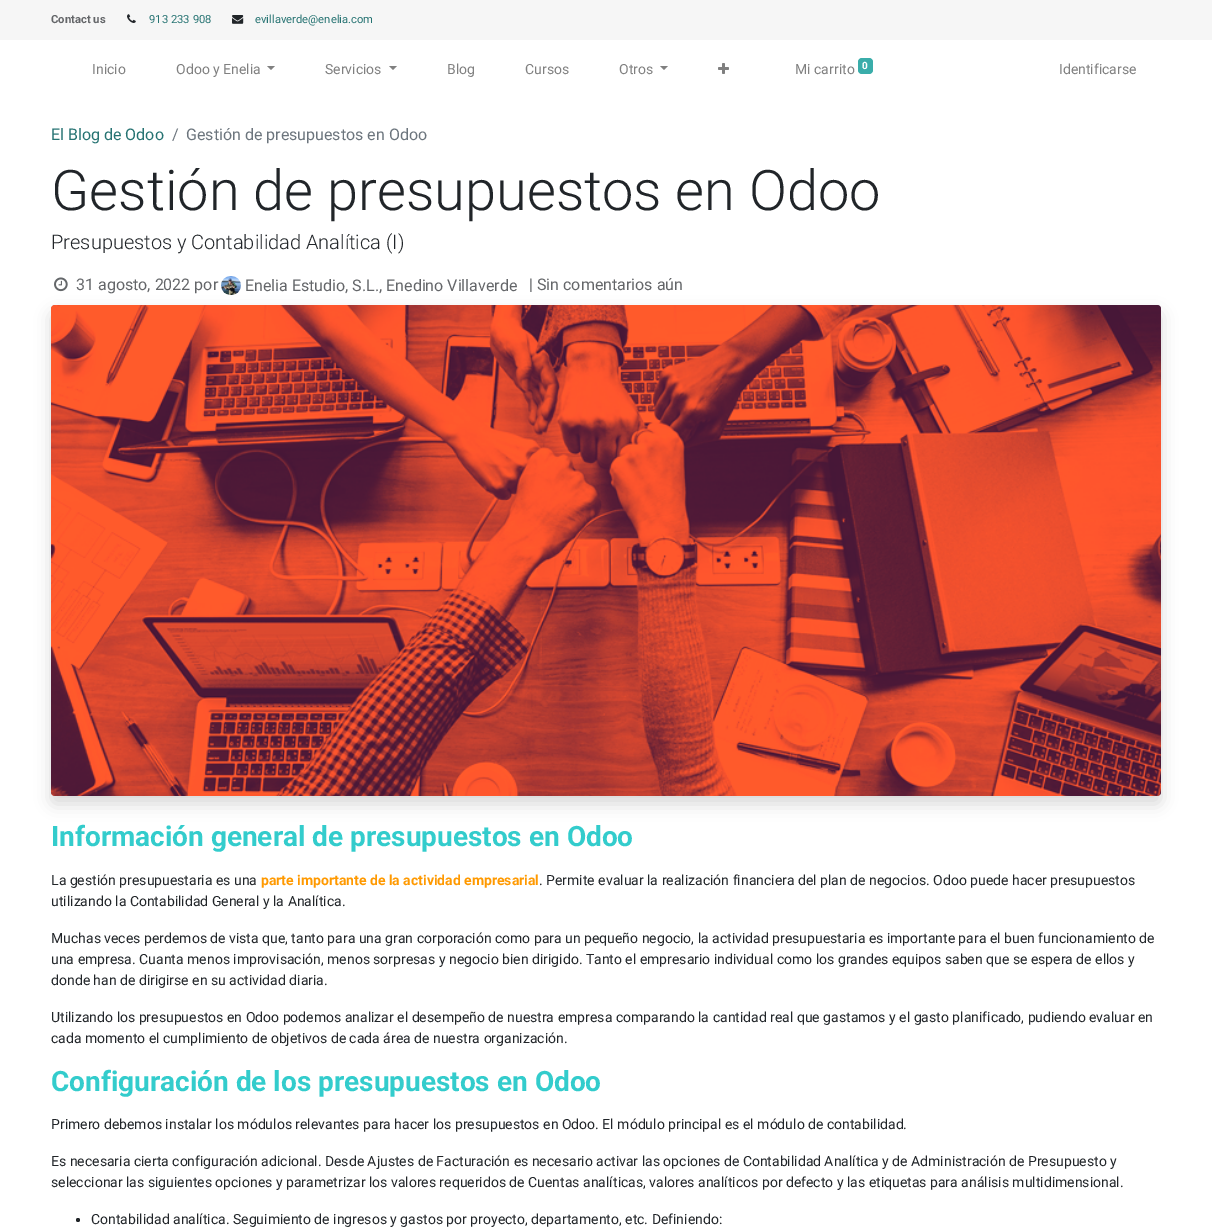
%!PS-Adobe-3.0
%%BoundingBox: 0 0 1212 1228
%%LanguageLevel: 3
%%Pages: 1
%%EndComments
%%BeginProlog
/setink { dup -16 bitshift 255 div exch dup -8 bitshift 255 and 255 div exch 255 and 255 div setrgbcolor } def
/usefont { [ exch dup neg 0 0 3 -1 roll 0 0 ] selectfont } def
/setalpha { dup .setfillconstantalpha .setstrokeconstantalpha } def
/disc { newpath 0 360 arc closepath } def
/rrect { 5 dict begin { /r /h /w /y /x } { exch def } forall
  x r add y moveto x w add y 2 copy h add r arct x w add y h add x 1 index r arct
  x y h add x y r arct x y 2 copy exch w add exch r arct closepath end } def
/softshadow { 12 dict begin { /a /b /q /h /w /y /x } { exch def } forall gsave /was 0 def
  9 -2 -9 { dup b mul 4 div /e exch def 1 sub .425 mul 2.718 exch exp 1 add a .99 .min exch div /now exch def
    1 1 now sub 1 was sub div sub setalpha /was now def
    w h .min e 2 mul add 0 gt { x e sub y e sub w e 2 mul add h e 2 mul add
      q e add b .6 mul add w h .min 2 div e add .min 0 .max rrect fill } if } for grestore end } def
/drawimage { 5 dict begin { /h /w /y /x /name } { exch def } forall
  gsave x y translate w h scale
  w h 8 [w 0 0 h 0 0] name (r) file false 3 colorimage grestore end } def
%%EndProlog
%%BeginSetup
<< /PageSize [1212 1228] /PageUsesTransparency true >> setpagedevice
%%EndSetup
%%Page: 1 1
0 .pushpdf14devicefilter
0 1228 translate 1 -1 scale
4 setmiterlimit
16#FFFFFF setink
0 0 1212 1228 rectfill
16#F6F6F6 setink
0 0 1212 40 rectfill
/Roboto-Bold 11.25 usefont
16#646669 setink
51 23 moveto (Contact us) show
(img1.raw) 127 14 9 9 drawimage
/Roboto-Regular 11.25 usefont
16#267372 setink
149 23 moveto (913 233 908) show
(img2.raw) 232 15 12 9 drawimage
255 23 moveto (evillaverde@enelia.com) show
/Roboto-Regular 14 usefont
16#808080 setink
92 74 moveto (Inicio) show
176 74 moveto (Odoo y Enelia) show
267 66 moveto 275 66 lineto 271 70 lineto closepath fill
325 74 moveto (Servicios) show
389 66 moveto 397 66 lineto 393 70 lineto closepath fill
[
    [(Blog) 447 74]
    [(Cursos) 525 74]
    [(Otros) 619 74]
] { aload pop moveto show } forall
660 66 moveto 668 66 lineto 664 70 lineto closepath fill
(img3.raw) 718 63 11 11 drawimage
795 74 moveto (Mi carrito) show
16#3AADAA setink
858 58 15 16 4 rrect fill
/Roboto-Bold 10 usefont
16#FFFFFF setink
862 69 moveto (0) show
/Roboto-Regular 14 usefont
16#808080 setink
1059 74 moveto (Identificarse) show
/Roboto-Regular 16 usefont
16#267372 setink
51 140 moveto (El Blog de Odoo) show
16#6C757D setink
172 140 moveto (/) show
186 140 moveto (Gestión de presupuestos en Odoo) show
/Roboto-Light 56 usefont
16#212529 setink
51 210 moveto (Gestión de presupuestos en Odoo) show
/Roboto-Light 20 usefont
51 249 moveto (Presupuestos y Contabilidad Analítica \(I\)) show
(img4.raw) 54 277 14 15 drawimage
/Roboto-Regular 16 usefont
16#646669 setink
76 290 moveto (31 agosto, 2022 por) show
(img5.raw) 221 276 20 19 drawimage
245 291 moveto (Enelia Estudio, S.L., Enedino Villaverde) show
529 290 moveto (| Sin comentarios aún) show
16#000000 setink
51 313 1110 491 4 8 0.15 softshadow
(img6.raw) 51 305 1110 491 drawimage
/Roboto-Bold 28 usefont
16#33CCCC setink
51 846 moveto (Información general de presupuestos en Odoo) show
/Roboto-Regular 14 usefont
16#212529 setink
51 885 moveto (La gestión presupuestaria es una) show
/Roboto-Bold 14 usefont
16#FF9900 setink
261 885 moveto (parte importante de la actividad empresarial) show
/Roboto-Regular 14 usefont
16#212529 setink
[
    [(. Permite evaluar la realización financiera del plan de negocios. Odoo puede hacer presupuestos) 539 885]
    [(utilizando la Contabilidad General y la Analítica.) 51 906]
    [(Muchas veces perdemos de vista que, tanto para una gran corporación como para un pequeño negocio, la actividad presupuestaria es importante para el buen funcionamiento de) 51 943]
    [(una empresa. Cuanta menos improvisación, menos sorpresas y negocio bien dirigido. Tanto el empresario individual como los grandes equipos saben que se espera de ellos y) 51 964]
    [(donde han de dirigirse en su actividad diaria.) 51 985]
    [(Utilizando los presupuestos en Odoo podemos analizar el desempeño de nuestra empresa comparando la cantidad real que gastamos y el gasto planificado, pudiendo evaluar en) 51 1022]
    [(cada momento el cumplimiento de objetivos de cada área de nuestra organización.) 51 1043]
] { aload pop moveto show } forall
/Roboto-Bold 28 usefont
16#33CCCC setink
51 1091 moveto (Configuración de los presupuestos en Odoo) show
/Roboto-Regular 14 usefont
16#212529 setink
[
    [(Primero debemos instalar los módulos relevantes para hacer los presupuestos en Odoo. El módulo principal es el módulo de contabilidad.) 51 1129]
    [(Es necesaria cierta configuración adicional. Desde Ajustes de Facturación es necesario activar las opciones de Contabilidad Analítica y de Administración de Presupuesto y) 51 1166]
    [(seleccionar las siguientes opciones y parametrizar los valores requeridos de Cuentas analíticas, valores analíticos por defecto y las etiquetas para análisis multidimensional.) 51 1187]
] { aload pop moveto show } forall
78 1220 2 disc fill
91 1224 moveto (Contabilidad analítica. Seguimiento de ingresos y gastos por proyecto, departamento, etc. Definiendo:) show
.poppdf14devicefilter showpage
%%EOF
